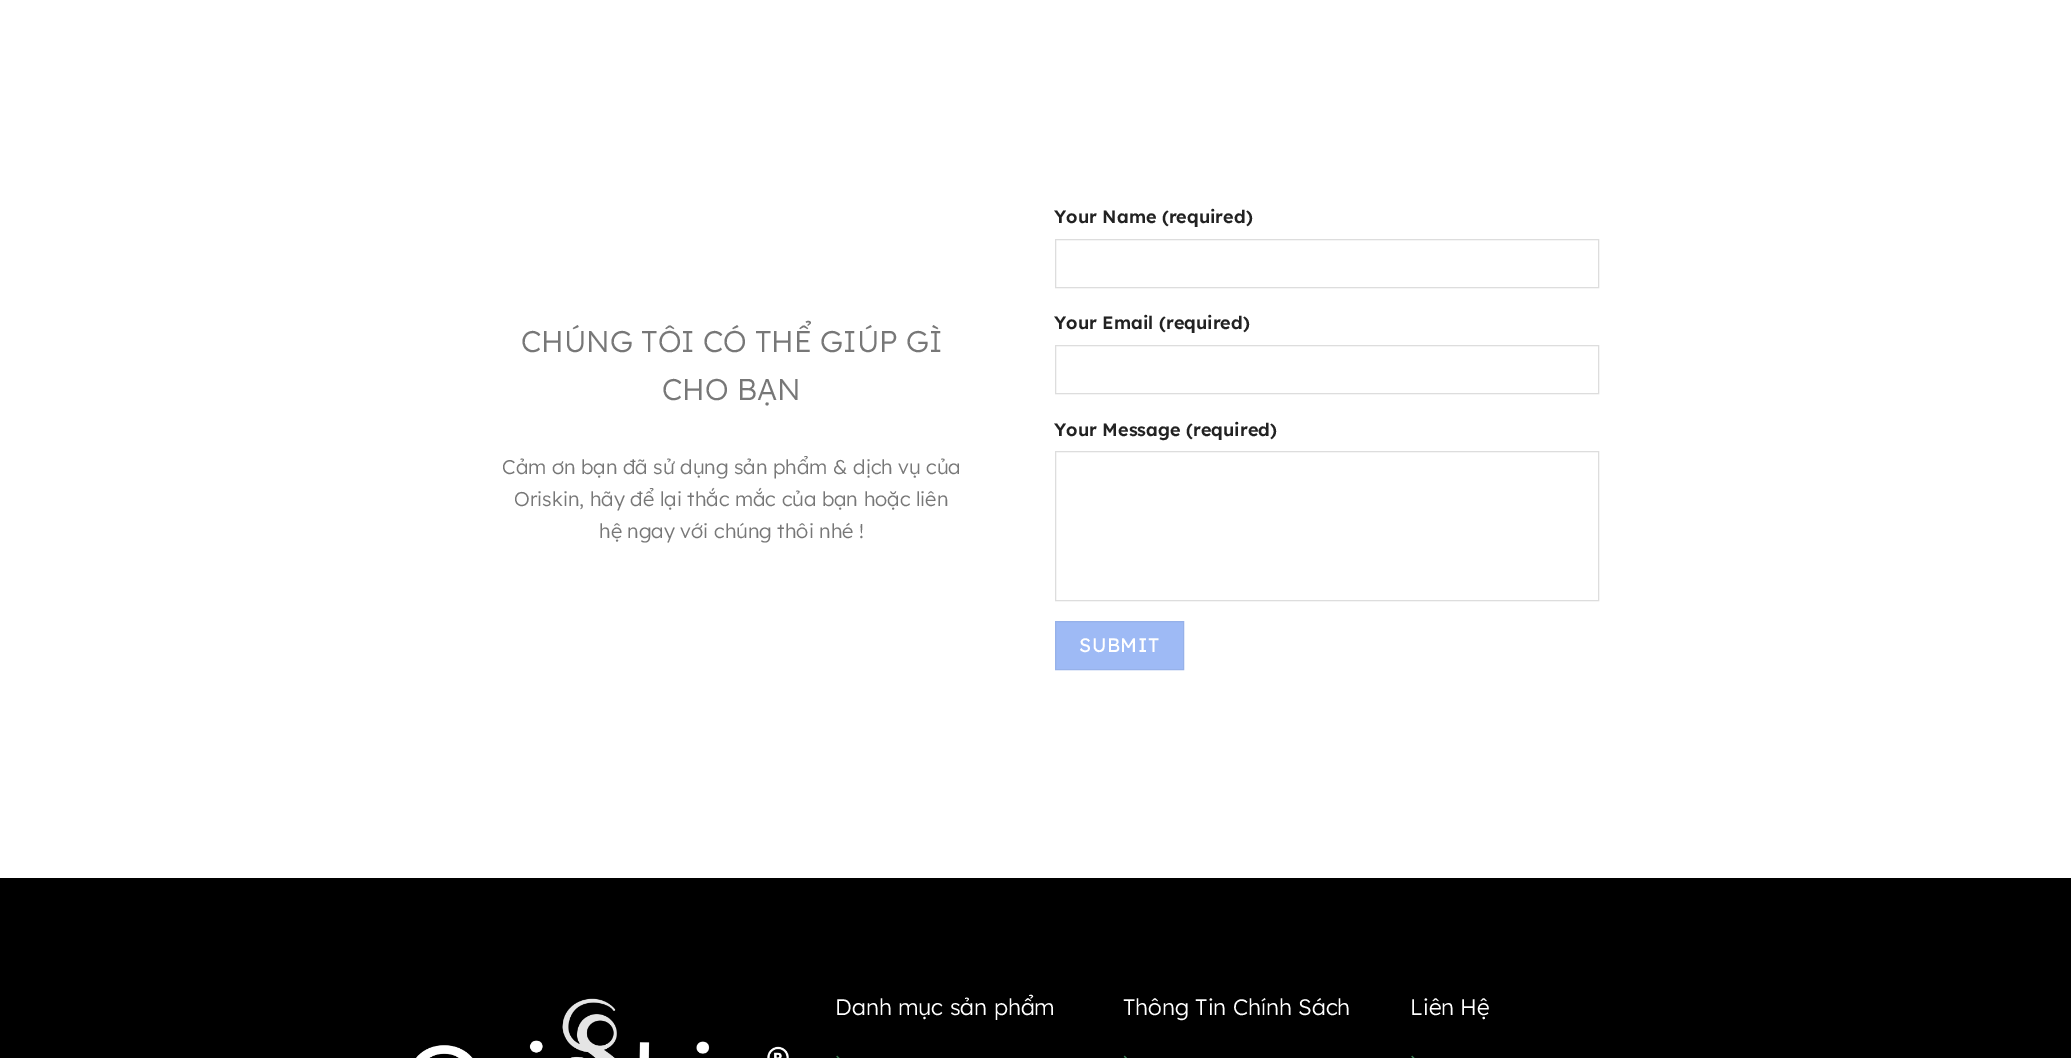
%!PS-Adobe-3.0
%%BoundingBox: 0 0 2071 1058
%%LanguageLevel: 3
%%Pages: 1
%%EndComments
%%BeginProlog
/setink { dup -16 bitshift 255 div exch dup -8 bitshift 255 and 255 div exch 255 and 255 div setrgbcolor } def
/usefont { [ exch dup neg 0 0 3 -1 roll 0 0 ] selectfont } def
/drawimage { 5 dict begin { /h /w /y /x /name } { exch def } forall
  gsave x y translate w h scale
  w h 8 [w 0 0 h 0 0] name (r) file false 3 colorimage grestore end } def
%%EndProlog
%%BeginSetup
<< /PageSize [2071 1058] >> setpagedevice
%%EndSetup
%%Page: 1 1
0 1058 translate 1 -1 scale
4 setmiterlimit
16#FFFFFF setink
0 0 2071 1058 rectfill
/Lexend-Light 30 usefont
16#777777 setink
521 352 moveto (CHÚNG TÔI CÓ THỂ GIÚP GÌ) show
662 400 moveto (CHO BẠN) show
/Lexend-Light 20 usefont
[
    [(Cảm ơn bạn đã sử dụng sản phẩm & dịch vụ của) 502 474]
    [(Oriskin, hãy để lại thắc mắc của bạn hoặc liên) 514 506]
    [(hệ ngay với chúng thôi nhé !) 599 538]
] { aload pop moveto show } forall
/Lexend-SemiBold 18 usefont
16#222222 setink
1054 223 moveto (Your Name \(required\)) show
16#DDDDDD setink
1055.5 239.5 543 48 rectstroke
16#222222 setink
1054 329 moveto (Your Email \(required\)) show
16#DDDDDD setink
1055.5 345.5 543 48 rectstroke
16#222222 setink
1054 436 moveto (Your Message \(required\)) show
16#DDDDDD setink
1055.5 451.5 543 149 rectstroke
16#9EBAF5 setink
1055.5 621.5 moveto 1183.5 621.5 lineto 1183.5 669.5 lineto 1055.5 669.5 lineto closepath gsave fill grestore
16#96B1E9 setink
stroke
/Lexend-Regular 19.5 usefont
16#FFFFFF setink
1079 652 moveto 0.5 0 (SUBMIT) ashow
16#000000 setink
0 878 2071 180 rectfill
(img1.raw) 416 998 373 60 drawimage
/Lexend-Light 22.5 usefont
16#FFFFFF setink
835 1015 moveto (Danh mục sản phẩm) show
(img2.raw) 836 1055 4 3 drawimage
1123 1015 moveto (Thông Tin Chính Sách) show
(img3.raw) 1123 1055 4 3 drawimage
1410 1015 moveto (Liên Hệ) show
(img2.raw) 1411 1055 4 3 drawimage
showpage
%%EOF
